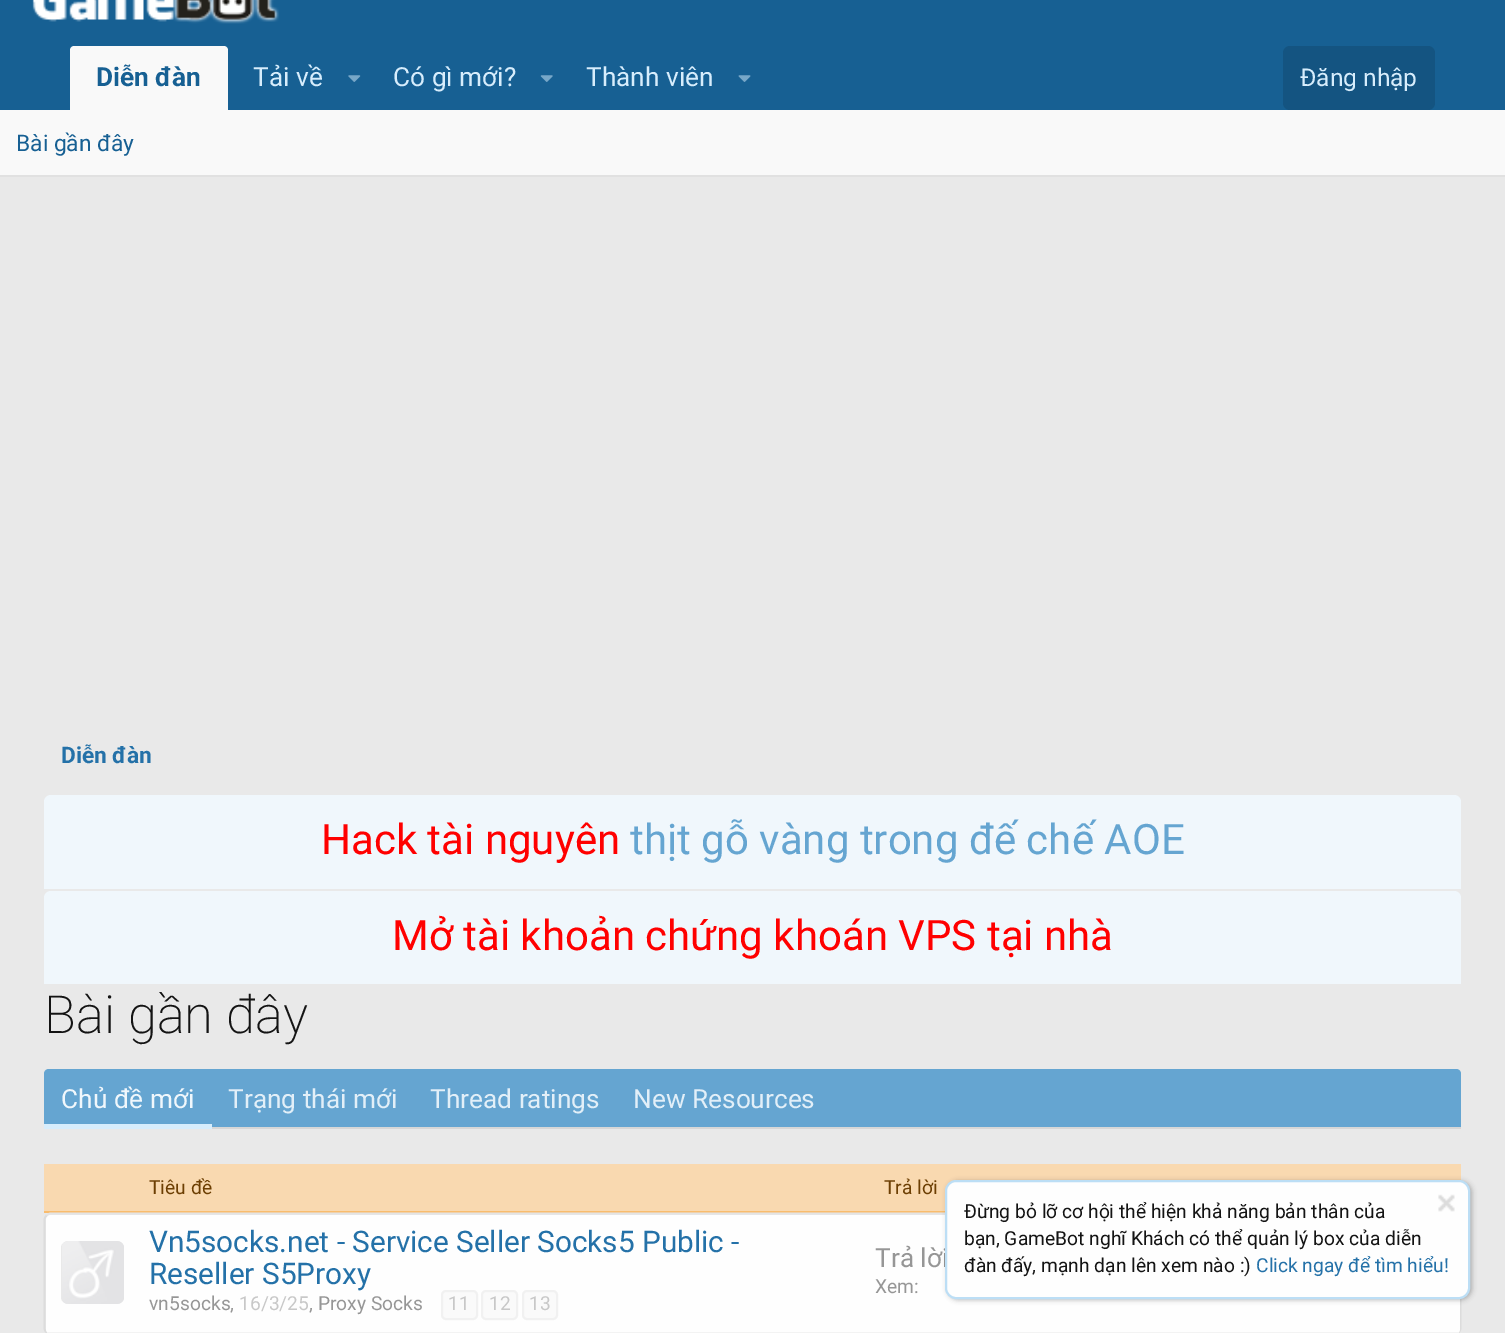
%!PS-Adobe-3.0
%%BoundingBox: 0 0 1505 1333
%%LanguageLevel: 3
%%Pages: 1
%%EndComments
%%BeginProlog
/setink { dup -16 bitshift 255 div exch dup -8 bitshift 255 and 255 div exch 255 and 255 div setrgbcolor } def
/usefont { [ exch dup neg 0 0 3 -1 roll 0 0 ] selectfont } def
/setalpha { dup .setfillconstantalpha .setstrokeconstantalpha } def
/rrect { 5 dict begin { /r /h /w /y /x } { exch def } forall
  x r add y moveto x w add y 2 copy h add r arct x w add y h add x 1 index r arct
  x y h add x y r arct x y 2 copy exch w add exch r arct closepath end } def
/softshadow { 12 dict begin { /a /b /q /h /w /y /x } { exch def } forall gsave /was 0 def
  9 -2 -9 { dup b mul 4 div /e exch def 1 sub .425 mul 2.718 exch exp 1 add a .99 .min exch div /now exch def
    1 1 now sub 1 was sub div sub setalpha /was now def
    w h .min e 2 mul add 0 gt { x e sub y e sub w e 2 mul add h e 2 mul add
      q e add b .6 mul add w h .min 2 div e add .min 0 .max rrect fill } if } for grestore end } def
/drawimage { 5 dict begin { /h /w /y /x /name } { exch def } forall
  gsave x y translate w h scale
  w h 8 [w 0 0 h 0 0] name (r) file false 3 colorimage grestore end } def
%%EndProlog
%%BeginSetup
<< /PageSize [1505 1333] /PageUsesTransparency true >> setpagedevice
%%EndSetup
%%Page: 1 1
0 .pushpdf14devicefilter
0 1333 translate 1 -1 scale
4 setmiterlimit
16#E9E9E9 setink
0 0 1505 1333 rectfill
16#176093 setink
0 0 1505 110 rectfill
(img1.raw) 32 0 247 24 drawimage
16#F9F9F9 setink
74 46 moveto 224 46 lineto 226 46 228 48 228 50 curveto 228 110 lineto 70 110 lineto 70 50 lineto 70 48 72 46 74 46 curveto closepath fill
/Roboto-Bold 26.25 usefont
16#176093 setink
96 86 moveto (Diễn đàn) show
16#F9F9F9 setink
0 110 1505 65 rectfill
16#E1E1E1 setink
0 175 1505 2 rectfill
/Roboto-Regular 22.75 usefont
16#176093 setink
16 151 moveto (Bài gần đây) show
/Roboto-Regular 26.25 usefont
16#D7EDFC setink
253 86 moveto (Tải về) show
(img2.raw) 348 75 13 7 drawimage
393 86 moveto (Có gì mới?) show
(img3.raw) 540 75 13 7 drawimage
586 86 moveto (Thành viên) show
(img4.raw) 738 75 13 7 drawimage
16#145481 setink
1283 46 152 64 7 rrect fill
/Roboto-Regular 24.5 usefont
16#D7EDFC setink
1300 86 moveto (Đăng nhập) show
/Roboto-Bold 22.75 usefont
16#2471A8 setink
61 763 moveto (Diễn đàn) show
16#F0F7FC setink
51 795 moveto 1454 795 lineto 1458 795 1461 798 1461 802 curveto 1461 891 lineto 44 891 lineto 44 802 lineto 44 798 47 795 51 795 curveto closepath fill
16#E9E9E9 setink
44 889 1417 2 rectfill
/Roboto-Regular 42 usefont
16#FF0000 setink
321 854 moveto (Hack tài nguyên) show
16#65A5D1 setink
630 854 moveto (thịt gỗ vàng trong đế chế AOE) show
16#F0F7FC setink
51 891 moveto 1454 891 lineto 1458 891 1461 894 1461 898 curveto 1461 985 lineto 44 985 lineto 44 898 lineto 44 894 47 891 51 891 curveto closepath fill
16#E9E9E9 setink
44 984 1417 1 rectfill
16#FF0000 setink
392 950 moveto (Mở tài khoản chứng khoán VPS tại nhà) show
/Roboto-ExtraLight 52.5 usefont
16#141414 setink
44 1033 moveto (Bài gần đây) show
16#65A5D1 setink
49 1069 moveto 1456 1069 lineto 1459 1069 1461 1071 1461 1074 curveto 1461 1129 lineto 44 1129 lineto 44 1074 lineto 44 1071 46 1069 49 1069 curveto closepath fill
16#D7D7D7 setink
212 1127 1249 2 rectfill
16#D7EDFC setink
44 1124 168 5 rectfill
/Roboto-Regular 26.25 usefont
16#F0F7FC setink
61 1108 moveto (Chủ đề mới) show
16#E2EFF8 setink
[
    [(Trạng thái mới) 228 1108]
    [(Thread ratings) 430 1108]
    [(New Resources) 633 1108]
] { aload pop moveto show } forall
16#F9D9B0 setink
44 1164 1417 47 rectfill
16#F9BC6D setink
44 1211 901 2 rectfill
/Roboto-Regular 19.25 usefont
16#6D3F03 setink
149 1194 moveto (Tiêu đề) show
884 1194 moveto (Trả lời) show
16#E4E4E4 setink
1.8 setlinewidth
46.5 1215.5 moveto 47.5 1214.5 49 1213.5 51 1213.5 curveto 1454 1213.5 lineto 1456 1213.5 1457.5 1214.5 1458.5 1215.5 curveto stroke
16#DCDCDC setink
1458.5 1215.5 moveto 1459.5 1216.5 1460.5 1218 1460.5 1220 curveto 1460.5 1328 lineto 1460.5 1330 1459.5 1331.5 1458.5 1332.5 curveto stroke
16#D2D2D2 setink
1458.5 1332.5 moveto 1457.5 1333.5 1456 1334.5 1454 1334.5 curveto 51 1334.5 lineto 49 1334.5 47.5 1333.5 46.5 1332.5 curveto stroke
16#DCDCDC setink
46.5 1332.5 moveto 45.5 1331.5 44.5 1330 44.5 1328 curveto 44.5 1220 lineto 44.5 1218 45.5 1216.5 46.5 1215.5 curveto stroke
16#FEFEFE setink
46 1215 1414 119 5 rrect fill
gsave
46 1215 1414 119 5 rrect clip newpath
16#F3F3F3 setink
46 1332 1414 1 rectfill
grestore
16#E9E9E9 setink
61 1241 63 63 7 rrect fill
(img5.raw) 62 1241 62 63 drawimage
/Roboto-Regular 29.75 usefont
16#2471A8 setink
149 1252 moveto (Vn5socks.net - Service Seller Socks5 Public -) show
149 1284 moveto (Reseller S5Proxy) show
/Roboto-Regular 19.25 usefont
16#969696 setink
149 1310 moveto (vn5socks,) show
16#C8C8C8 setink
239 1310 moveto (16/3/25) show
16#969696 setink
309 1310 moveto (, Proxy Socks) show
16#FAFAFA setink
442 1291 35 28 4 rrect gsave fill grestore
16#F1F1F1 setink
2 setlinewidth
stroke
16#C8C8C8 setink
448 1310 moveto (11) show
16#FAFAFA setink
482 1291 35 28 4 rrect gsave fill grestore
16#F1F1F1 setink
stroke
16#C8C8C8 setink
489 1310 moveto (12) show
16#FAFAFA setink
523 1291 34 28 4 rrect gsave fill grestore
16#F1F1F1 setink
stroke
16#C8C8C8 setink
529 1310 moveto (13) show
/Roboto-Regular 26.25 usefont
16#969696 setink
875 1267 moveto (Trả lời) show
/Roboto-Regular 19.25 usefont
875 1293 moveto (Xem:) show
16#000000 setink
947 1181 525 119 11 2.5 0.25 softshadow
16#FEFEFE setink
946 1181 523 117 10 rrect gsave fill grestore
16#BCDEF5 setink
stroke
(img6.raw) 1438 1194 17 18 drawimage
16#141414 setink
[
    [(Đừng bỏ lỡ cơ hội thể hiện khả năng bản thân của) 964 1218]
    [(bạn, GameBot nghĩ Khách có thể quản lý box của diễn) 964 1245]
    [(đàn đấy, mạnh dạn lên xem nào :\)) 964 1272]
] { aload pop moveto show } forall
16#2471A8 setink
1256 1272 moveto (Click ngay để tìm hiểu!) show
.poppdf14devicefilter showpage
%%EOF
